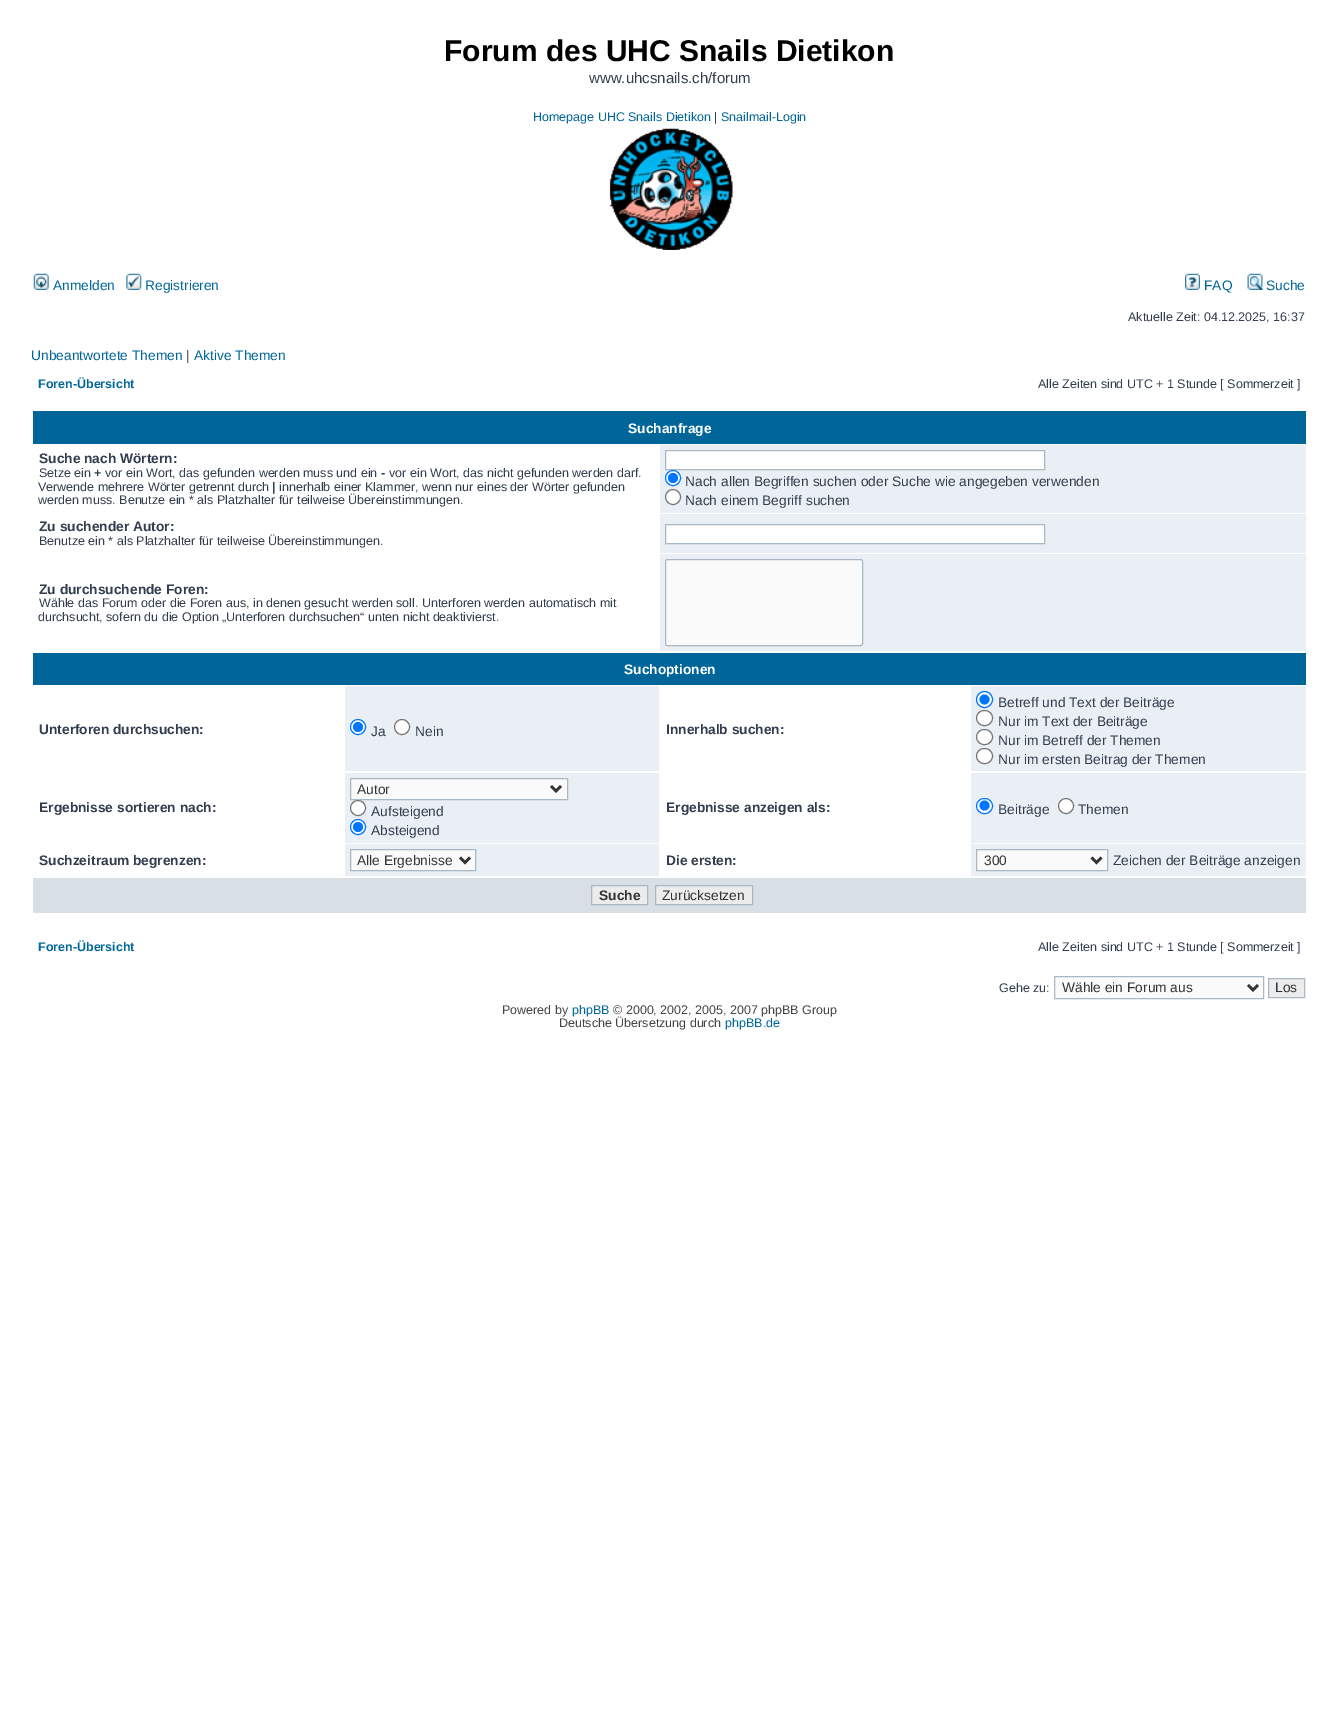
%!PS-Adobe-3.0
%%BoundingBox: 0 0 1338 1716
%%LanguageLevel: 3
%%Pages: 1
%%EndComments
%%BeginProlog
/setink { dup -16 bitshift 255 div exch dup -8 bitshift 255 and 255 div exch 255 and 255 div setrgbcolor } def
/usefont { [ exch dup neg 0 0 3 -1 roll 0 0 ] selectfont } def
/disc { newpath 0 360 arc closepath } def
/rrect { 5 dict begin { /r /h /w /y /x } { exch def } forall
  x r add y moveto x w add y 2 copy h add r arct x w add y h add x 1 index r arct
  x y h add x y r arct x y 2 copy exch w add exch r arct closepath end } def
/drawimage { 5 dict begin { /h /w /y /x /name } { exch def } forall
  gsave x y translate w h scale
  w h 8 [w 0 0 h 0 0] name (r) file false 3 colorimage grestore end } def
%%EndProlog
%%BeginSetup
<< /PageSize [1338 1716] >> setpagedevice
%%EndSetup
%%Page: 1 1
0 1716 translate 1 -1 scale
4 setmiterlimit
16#FFFFFF setink
0 0 1338 1716 rectfill
/LiberationSans-Bold 30 usefont
16#000000 setink
444 61 moveto (Forum des UHC Snails Dietikon) show
/LiberationSans-Regular 15 usefont
16#323D4F setink
589 83 moveto (www.uhcsnails.ch/forum) show
/LiberationSans-Regular 12.5 usefont
16#006699 setink
533 121 moveto (Homepage UHC Snails Dietikon) show
16#323D4F setink
714 121 moveto (|) show
16#006699 setink
721 121 moveto (Snailmail-Login) show
(img1.raw) 609 128 124 122 drawimage
(img2.raw) 33 273 16 17 drawimage
/LiberationSans-Regular 13.75 usefont
53 290 moveto (Anmelden) show
(img3.raw) 126 273 16 17 drawimage
145 290 moveto (Registrieren) show
(img4.raw) 1185 273 15 17 drawimage
1204 290 moveto (FAQ) show
(img5.raw) 1247 273 16 17 drawimage
1266 290 moveto (Suche) show
/LiberationSans-Regular 12.5 usefont
16#323D4F setink
1128 321 moveto (Aktuelle Zeit: 04.12.2025, 16:37) show
/LiberationSans-Regular 13.75 usefont
16#006699 setink
31 360 moveto (Unbeantwortete Themen) show
16#323D4F setink
186 360 moveto (|) show
16#006699 setink
194 360 moveto (Aktive Themen) show
/LiberationSans-Bold 12.5 usefont
38 388 moveto (Foren-Übersicht) show
/LiberationSans-Regular 12.5 usefont
16#323D4F setink
1038 388 moveto (Alle Zeiten sind UTC + 1 Stunde [ Sommerzeit ]) show
16#006699 setink
33 411 1273 33 rectfill
/LiberationSans-Bold 13.75 usefont
16#FFFFFF setink
628 433 moveto (Suchanfrage) show
16#323D4F setink
39 463 moveto (Suche nach Wörtern:) show
/LiberationSans-Regular 12.5 usefont
39 477 moveto (Setze ein) show
/LiberationSans-Bold 12.5 usefont
94 477 moveto (+) show
/LiberationSans-Regular 12.5 usefont
105 477 moveto (vor ein Wort, das gefunden werden muss und ein) show
/LiberationSans-Bold 12.5 usefont
381 477 moveto (-) show
/LiberationSans-Regular 12.5 usefont
389 477 moveto (vor ein Wort, das nicht gefunden werden darf.) show
38 491 moveto (Verwende mehrere Wörter getrennt durch) show
/LiberationSans-Bold 12.5 usefont
272 491 moveto (|) show
/LiberationSans-Regular 12.5 usefont
279 491 moveto (innerhalb einer Klammer, wenn nur eines der Wörter gefunden) show
38 504 moveto (werden muss. Benutze ein * als Platzhalter für teilweise Übereinstimmungen.) show
16#E9EFF4 setink
660 445 646 68 rectfill
16#FFFFFF setink
665.5 450.5 moveto 1044.5 450.5 lineto 1044.5 469.5 lineto 665.5 469.5 lineto closepath gsave fill grestore
16#A9B8C2 setink
stroke
16#FFFFFF setink
673 478 7.5 disc gsave fill grestore
16#0075FF setink
stroke
673 478 5 disc fill
/LiberationSans-Regular 13.75 usefont
16#323D4F setink
685 486 moveto (Nach allen Begriffen suchen oder Suche wie angegeben verwenden) show
16#FFFFFF setink
673 497 7.5 disc gsave fill grestore
16#767676 setink
stroke
16#323D4F setink
685 505 moveto (Nach einem Begriff suchen) show
/LiberationSans-Bold 13.75 usefont
39 531 moveto (Zu suchender Autor:) show
/LiberationSans-Regular 12.5 usefont
39 545 moveto (Benutze ein * als Platzhalter für teilweise Übereinstimmungen.) show
16#E9EFF4 setink
660 514 646 39 rectfill
16#FFFFFF setink
665.5 524.5 moveto 1044.5 524.5 lineto 1044.5 543.5 lineto 665.5 543.5 lineto closepath gsave fill grestore
16#A9B8C2 setink
stroke
/LiberationSans-Bold 13.75 usefont
16#323D4F setink
39 594 moveto (Zu durchsuchende Foren:) show
/LiberationSans-Regular 12.5 usefont
39 607 moveto (Wähle das Forum oder die Foren aus, in denen gesucht werden soll. Unterforen werden automatisch mit) show
38 621 moveto (durchsucht, sofern du die Option „Unterforen durchsuchen“ unten nicht deaktivierst.) show
16#E9EFF4 setink
660 554 646 97 rectfill
16#FAFAFA setink
665.5 559.5 197 86 2 rrect gsave fill grestore
16#A9B8C2 setink
stroke
16#006699 setink
33 653 1273 32 rectfill
/LiberationSans-Bold 13.75 usefont
16#FFFFFF setink
624 674 moveto (Suchoptionen) show
16#323D4F setink
39 734 moveto (Unterforen durchsuchen:) show
16#E9EFF4 setink
345 686 314 85 rectfill
16#FFFFFF setink
358 727 7.5 disc gsave fill grestore
16#0075FF setink
stroke
358 727 5 disc fill
/LiberationSans-Regular 13.75 usefont
16#323D4F setink
371 736 moveto (Ja) show
16#FFFFFF setink
402 727 7.5 disc gsave fill grestore
16#767676 setink
stroke
16#323D4F setink
415 736 moveto (Nein) show
/LiberationSans-Bold 13.75 usefont
666 734 moveto (Innerhalb suchen:) show
16#E9EFF4 setink
971 686 335 85 rectfill
16#FFFFFF setink
984.5 699.5 8 disc gsave fill grestore
16#0075FF setink
stroke
984.5 699.5 5 disc fill
/LiberationSans-Regular 13.75 usefont
16#323D4F setink
998 707 moveto (Betreff und Text der Beiträge) show
16#FFFFFF setink
976.5 710.5 16 15 7.5 rrect gsave fill grestore
16#767676 setink
stroke
16#323D4F setink
998 726 moveto (Nur im Text der Beiträge) show
16#FFFFFF setink
976.5 729.5 16 15 7.5 rrect gsave fill grestore
16#767676 setink
stroke
16#323D4F setink
998 745 moveto (Nur im Betreff der Themen) show
16#FFFFFF setink
976.5 748.5 16 15 7.5 rrect gsave fill grestore
16#767676 setink
stroke
16#323D4F setink
998 764 moveto (Nur im ersten Beitrag der Themen) show
/LiberationSans-Bold 13.75 usefont
39 812 moveto (Ergebnisse sortieren nach:) show
16#E9EFF4 setink
345 773 314 70 rectfill
16#FAFAFA setink
350.5 778.5 moveto 567.5 778.5 lineto 567.5 799.5 lineto 350.5 799.5 lineto closepath gsave fill grestore
16#A9B8C2 setink
stroke
16#333333 setink
2.5 setlinewidth
551 786 moveto 556 791 lineto 561 786 lineto stroke
/LiberationSans-Regular 13.75 usefont
357 794 moveto (Autor) show
16#FFFFFF setink
358 808 7.5 disc gsave fill grestore
16#767676 setink
1 setlinewidth
stroke
16#323D4F setink
371 816 moveto (Aufsteigend) show
16#FFFFFF setink
358 827 7.5 disc gsave fill grestore
16#0075FF setink
stroke
358 827 5 disc fill
16#323D4F setink
371 835 moveto (Absteigend) show
/LiberationSans-Bold 13.75 usefont
666 812 moveto (Ergebnisse anzeigen als:) show
16#E9EFF4 setink
971 773 335 70 rectfill
16#FFFFFF setink
976.5 798.5 16 15 7.5 rrect gsave fill grestore
16#0075FF setink
stroke
984.5 805.5 5 disc fill
/LiberationSans-Regular 13.75 usefont
16#323D4F setink
998 814 moveto (Beiträge) show
16#FFFFFF setink
1066 806 7.5 disc gsave fill grestore
16#767676 setink
stroke
16#323D4F setink
1078 814 moveto (Themen) show
/LiberationSans-Bold 13.75 usefont
39 865 moveto (Suchzeitraum begrenzen:) show
16#E9EFF4 setink
345 844 314 32 rectfill
16#FAFAFA setink
350.5 849.5 moveto 475.5 849.5 lineto 475.5 870.5 lineto 350.5 870.5 lineto closepath gsave fill grestore
16#A9B8C2 setink
stroke
16#333333 setink
2.5 setlinewidth
460 857.5 moveto 465 862.5 lineto 470 857.5 lineto stroke
/LiberationSans-Regular 13.75 usefont
357 865 moveto (Alle Ergebnisse) show
/LiberationSans-Bold 13.75 usefont
16#323D4F setink
666 865 moveto (Die ersten:) show
16#E9EFF4 setink
971 844 335 32 rectfill
16#FAFAFA setink
976.5 849.5 moveto 1107.5 849.5 lineto 1107.5 870.5 lineto 976.5 870.5 lineto closepath gsave fill grestore
16#A9B8C2 setink
1 setlinewidth
stroke
16#333333 setink
2.5 setlinewidth
1091.5 857.5 moveto 1096.5 862.5 lineto 1101.5 857.5 lineto stroke
/LiberationSans-Regular 13.75 usefont
984 865 moveto (300) show
16#323D4F setink
1113 865 moveto (Zeichen der Beiträge anzeigen) show
16#D8E0E6 setink
33 878 1273 35 rectfill
16#ECECEC setink
591.5 885.5 moveto 647.5 885.5 lineto 647.5 904.5 lineto 591.5 904.5 lineto closepath gsave fill grestore
16#A9B8C2 setink
1 setlinewidth
stroke
/LiberationSans-Bold 13.75 usefont
16#333333 setink
599 900 moveto (Suche) show
16#ECECEC setink
655.5 885.5 moveto 752.5 885.5 lineto 752.5 904.5 lineto 655.5 904.5 lineto closepath gsave fill grestore
16#A9B8C2 setink
stroke
/LiberationSans-Regular 13.75 usefont
16#333333 setink
662 900 moveto (Zurücksetzen) show
/LiberationSans-Bold 12.5 usefont
16#006699 setink
38 951 moveto (Foren-Übersicht) show
/LiberationSans-Regular 12.5 usefont
16#323D4F setink
1038 951 moveto (Alle Zeiten sind UTC + 1 Stunde [ Sommerzeit ]) show
999 992 moveto (Gehe zu:) show
16#FAFAFA setink
1054.5 976.5 moveto 1263.5 976.5 lineto 1263.5 998.5 lineto 1054.5 998.5 lineto closepath gsave fill grestore
16#A9B8C2 setink
stroke
16#333333 setink
2.5 setlinewidth
1248 985 moveto 1253 990 lineto 1258 985 lineto stroke
/LiberationSans-Regular 13.75 usefont
1062 992 moveto (Wähle ein Forum aus) show
16#ECECEC setink
1268.5 978.5 moveto 1304.5 978.5 lineto 1304.5 997.5 lineto 1268.5 997.5 lineto closepath gsave fill grestore
16#A9B8C2 setink
1 setlinewidth
stroke
16#333333 setink
1275 992 moveto (Los) show
/LiberationSans-Regular 12.5 usefont
16#444444 setink
502 1014 moveto (Powered by) show
16#006699 setink
572 1014 moveto (phpBB) show
16#444444 setink
613 1014 moveto (© 2000, 2002, 2005, 2007 phpBB Group) show
559 1027 moveto (Deutsche Übersetzung durch) show
16#006699 setink
725 1027 moveto (phpBB.de) show
showpage
%%EOF
